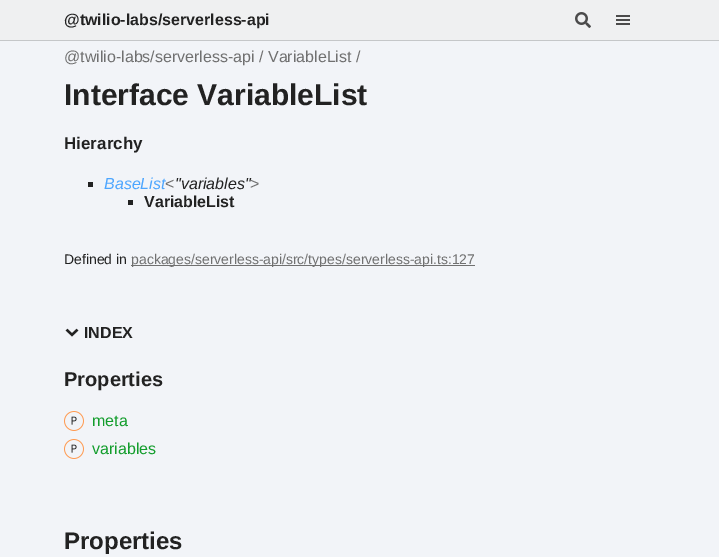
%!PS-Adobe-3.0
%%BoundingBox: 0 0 719 557
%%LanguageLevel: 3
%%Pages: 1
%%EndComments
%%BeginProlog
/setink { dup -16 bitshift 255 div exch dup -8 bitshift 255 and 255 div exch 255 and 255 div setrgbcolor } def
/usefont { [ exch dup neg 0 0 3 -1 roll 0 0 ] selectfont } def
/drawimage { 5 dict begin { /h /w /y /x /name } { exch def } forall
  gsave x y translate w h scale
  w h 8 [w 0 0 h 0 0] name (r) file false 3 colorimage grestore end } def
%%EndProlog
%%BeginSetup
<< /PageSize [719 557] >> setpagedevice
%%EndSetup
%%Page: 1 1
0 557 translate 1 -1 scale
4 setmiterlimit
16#F2F4F8 setink
0 0 719 557 rectfill
16#EFF0F1 setink
0 0 719 40 rectfill
16#C5C7C9 setink
0 40 719 1 rectfill
/LiberationSans-Bold 16 usefont
16#222222 setink
64 25 moveto (@twilio-labs/serverless-api) show
(img1.raw) 575 12 16 16 drawimage
[
    [616 15 14 2 16#4B4B4B]
    [616 19 14 2 16#4B4B4B]
    [616 23 14 2 16#4B4B4B]
] { aload pop setink rectfill } forall
/LiberationSans-Regular 16 usefont
16#707070 setink
64 62 moveto (@twilio-labs/serverless-api / VariableList /) show
/LiberationSans-Bold 30 usefont
16#222222 setink
64 105 moveto (Interface VariableList) show
/LiberationSans-Bold 17 usefont
64 149 moveto (Hierarchy) show
88 182 5 5 rectfill
/LiberationSans-Italic 16 usefont
16#4DA6FF setink
104 189 moveto (BaseList) show
/LiberationSans-Regular 16 usefont
16#707070 setink
165 189 moveto (<) show
/LiberationSans-Italic 16 usefont
16#222222 setink
175 189 moveto ("variables") show
/LiberationSans-Regular 16 usefont
16#707070 setink
250 189 moveto (>) show
16#222222 setink
128 200 5 5 rectfill
/LiberationSans-Bold 16 usefont
144 207 moveto (VariableList) show
/LiberationSans-Regular 14 usefont
64 264 moveto (Defined in) show
16#707070 setink
131 265 344 1 rectfill
131 264 moveto (packages/serverless-api/src/types/serverless-api.ts:127) show
(img2.raw) 65 328 14 9 drawimage
/LiberationSans-Bold 16 usefont
16#222222 setink
84 338 moveto (INDEX) show
/LiberationSans-Bold 20 usefont
64 386 moveto (Properties) show
(img3.raw) 64 411 20 20 drawimage
/LiberationSans-Regular 16 usefont
16#139D2C setink
92 426 moveto (meta) show
(img3.raw) 64 439 20 20 drawimage
92 454 moveto (variables) show
/LiberationSans-Bold 24 usefont
16#222222 setink
64 549 moveto (Properties) show
showpage
%%EOF
